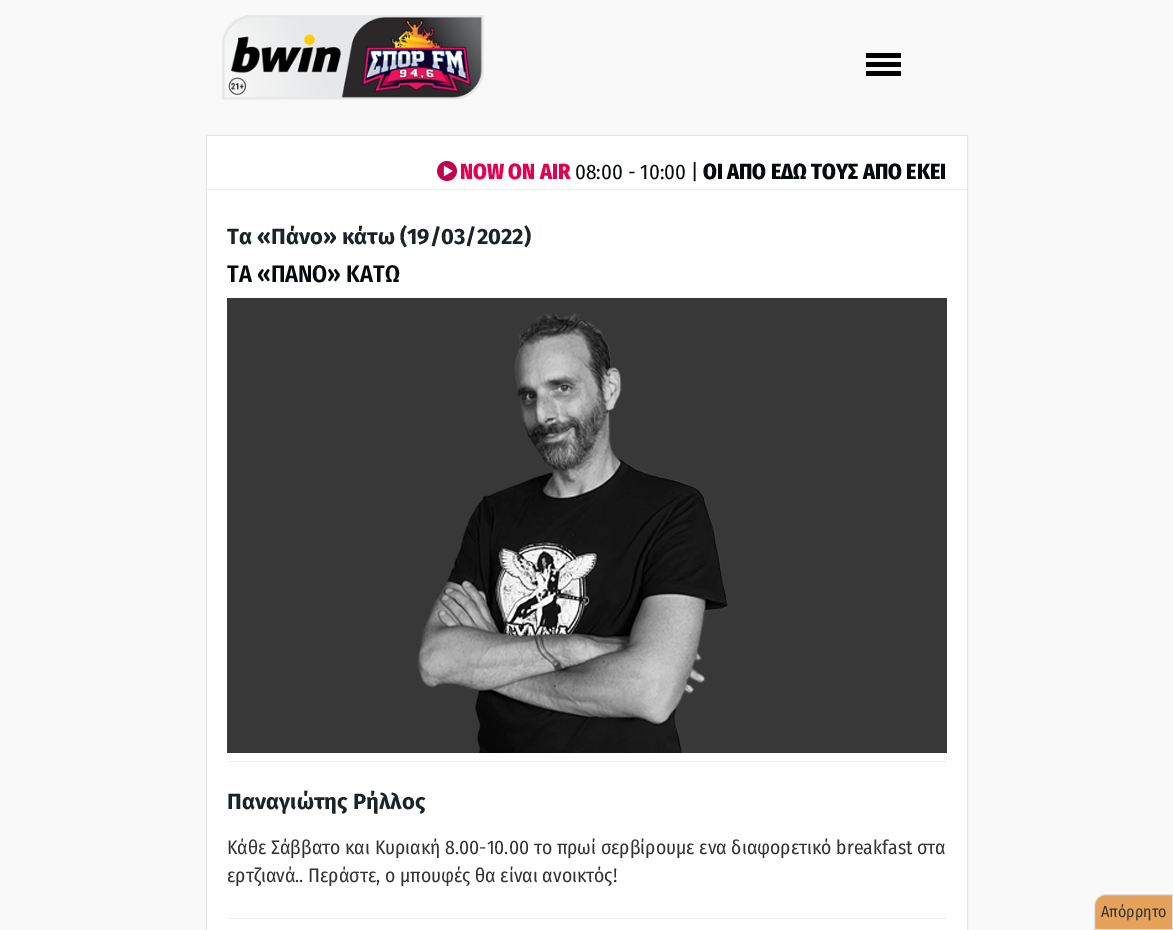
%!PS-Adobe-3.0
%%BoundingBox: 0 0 1173 930
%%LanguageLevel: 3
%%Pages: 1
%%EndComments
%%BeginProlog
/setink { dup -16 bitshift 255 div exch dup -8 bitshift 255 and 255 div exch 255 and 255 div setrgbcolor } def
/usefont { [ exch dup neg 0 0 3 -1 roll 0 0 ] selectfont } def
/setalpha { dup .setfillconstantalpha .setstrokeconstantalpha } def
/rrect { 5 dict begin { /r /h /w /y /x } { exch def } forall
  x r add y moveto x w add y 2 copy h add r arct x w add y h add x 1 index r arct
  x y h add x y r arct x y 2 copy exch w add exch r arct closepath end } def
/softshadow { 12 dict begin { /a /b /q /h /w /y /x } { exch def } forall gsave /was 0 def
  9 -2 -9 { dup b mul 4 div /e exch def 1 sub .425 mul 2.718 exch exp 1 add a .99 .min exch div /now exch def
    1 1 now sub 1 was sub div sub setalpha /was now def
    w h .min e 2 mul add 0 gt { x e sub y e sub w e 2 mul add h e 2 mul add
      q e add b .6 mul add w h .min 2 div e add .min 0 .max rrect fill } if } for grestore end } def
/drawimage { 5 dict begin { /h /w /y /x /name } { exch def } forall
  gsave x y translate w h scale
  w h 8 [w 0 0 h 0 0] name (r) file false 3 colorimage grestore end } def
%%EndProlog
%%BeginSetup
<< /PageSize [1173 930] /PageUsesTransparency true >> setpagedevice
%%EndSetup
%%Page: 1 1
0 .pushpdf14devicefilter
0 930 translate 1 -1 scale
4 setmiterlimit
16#F9F9F9 setink
0 0 1173 930 rectfill
(img1.raw) 222 15 262 85 drawimage
16#000000 setink
866 53 35 5 1 rrect fill
866 62 35 5 1 rrect fill
866 71 35 5 1 rrect fill
207 136 760 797 0 1 0.23 softshadow
16#FFFFFF setink
207 136 760 794 rectfill
16#EEEEEE setink
207 189 760 1 rectfill
(img2.raw) 437 161 20 20 drawimage
/FiraSansCondensed-ExtraBold 22 usefont
16#E4004F setink
460 179 moveto (NOW ON AIR) show
/FiraSansCondensed-Regular 21 usefont
16#070A0D setink
575 179 moveto (08:00 - 10:00 |) show
/FiraSansCondensed-ExtraBold 22 usefont
703 179 moveto (ΟΙ ΑΠΟ ΕΔΩ ΤΟΥΣ ΑΠΟ ΕΚΕΙ) show
/FiraSans-Bold 22 usefont
16#1D2228 setink
227 244 moveto (Τα «Πάνο» κάτω \(19/03/2022\)) show
/FiraSansCondensed-SemiBold 24 usefont
16#070A0D setink
227 282 moveto (ΤA «ΠΑΝΟ» ΚΑΤΩ) show
16#383838 setink
227 298 720 455 rectfill
(img3.raw) 417 313 311 440 drawimage
16#EEEEEE setink
227 761 720 1 rectfill
/FiraSans-Bold 22 usefont
16#1D2228 setink
227 809 moveto (Παναγιώτης Ρήλλος) show
/FiraSansCondensed-Regular 19.6 usefont
16#333333 setink
227 854 moveto (Κάθε Σάββατο και Κυριακή 8.00-10.00 το πρωί σερβίρουμε ενα διαφορετικό breakfast στα) show
227 882 moveto (ερτζιανά.. Περάστε, ο μπουφές θα είναι ανοικτός!) show
16#EEEEEE setink
227 918 720 1 rectfill
16#E4A25B setink
1106 894.5 moveto 1172.5 894.5 lineto 1172.5 929.5 lineto 1094.5 929.5 lineto 1094.5 906 lineto 1094.5 899.5 1099.5 894.5 1106 894.5 curveto closepath gsave fill grestore
16#DEE2E6 setink
stroke
/FiraSansCondensed-Regular 16 usefont
16#333333 setink
1101 917 moveto (Απόρρητο) show
.poppdf14devicefilter showpage
%%EOF
